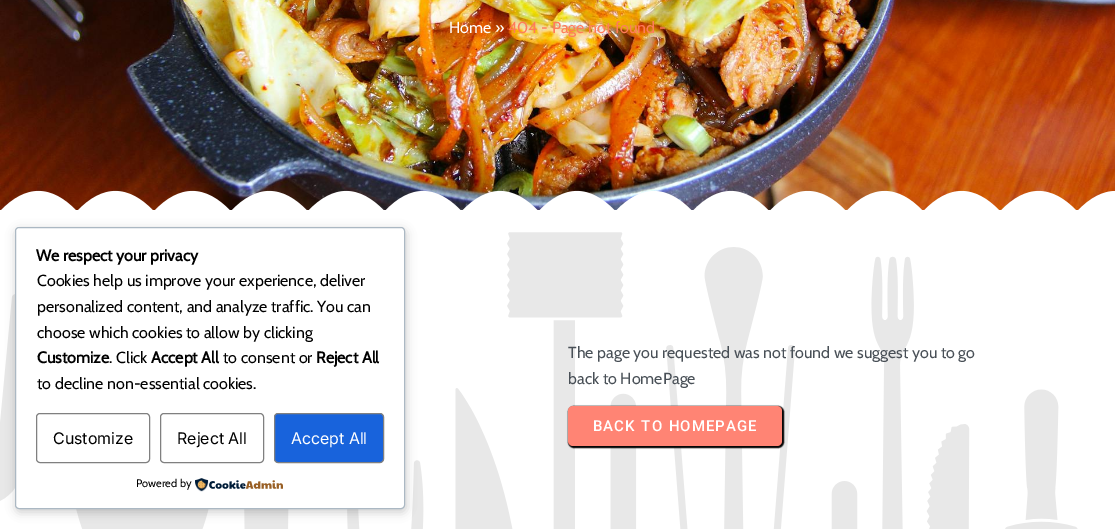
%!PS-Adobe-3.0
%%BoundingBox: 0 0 1115 529
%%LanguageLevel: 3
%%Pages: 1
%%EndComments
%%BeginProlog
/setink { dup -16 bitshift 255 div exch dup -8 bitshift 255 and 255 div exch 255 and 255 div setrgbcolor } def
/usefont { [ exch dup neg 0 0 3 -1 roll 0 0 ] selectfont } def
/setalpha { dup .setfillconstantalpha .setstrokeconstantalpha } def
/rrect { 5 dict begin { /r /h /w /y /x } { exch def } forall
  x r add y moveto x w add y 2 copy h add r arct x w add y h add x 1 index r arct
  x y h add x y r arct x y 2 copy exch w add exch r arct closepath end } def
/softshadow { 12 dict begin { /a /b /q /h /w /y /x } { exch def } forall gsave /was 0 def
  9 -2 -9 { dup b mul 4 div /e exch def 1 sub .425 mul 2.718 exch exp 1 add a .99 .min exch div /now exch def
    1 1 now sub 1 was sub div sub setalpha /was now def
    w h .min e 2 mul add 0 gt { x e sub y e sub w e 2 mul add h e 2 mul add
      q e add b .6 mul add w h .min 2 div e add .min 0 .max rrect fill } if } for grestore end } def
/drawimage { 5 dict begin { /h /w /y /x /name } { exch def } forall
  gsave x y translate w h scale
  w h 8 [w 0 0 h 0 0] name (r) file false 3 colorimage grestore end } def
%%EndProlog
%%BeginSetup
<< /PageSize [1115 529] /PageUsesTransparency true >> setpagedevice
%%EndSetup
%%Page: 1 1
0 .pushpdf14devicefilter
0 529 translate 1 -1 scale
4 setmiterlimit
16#FFFFFF setink
0 0 1115 529 rectfill
(img1.raw) 0 232 1078 297 drawimage
(img2.raw) 0 0 1115 210 drawimage
/Cabin-Regular 16 usefont
449 33 moveto (Home ») show
16#FF7C5B setink
508 33 moveto (404 - Page not found -) show
(img3.raw) 1 190 1114 20 drawimage
16#000000 setink
16 230 390 282 4 5 0.2 softshadow
16#FFFFFF setink
15.5 227.5 389 281 3.5 rrect gsave fill grestore
16#ABB8C3 setink
stroke
/Cabin-Bold 16 usefont
16#000000 setink
36 261 moveto (We respect your privacy) show
/Cabin-Regular 16 usefont
[
    [(Cookies help us improve your experience, deliver) 37 286]
    [(personalized content, and analyze traffic. You can) 37 312]
    [(choose which cookies to allow by clicking) 37 338]
] { aload pop moveto show } forall
/Cabin-Bold 16 usefont
37 363 moveto (Customize) show
/Cabin-Regular 16 usefont
109 363 moveto (. Click) show
/Cabin-Bold 16 usefont
151 363 moveto (Accept All) show
/Cabin-Regular 16 usefont
223 363 moveto (to consent or) show
/Cabin-Bold 16 usefont
316 363 moveto (Reject All) show
/Cabin-Regular 16 usefont
37 389 moveto (to decline non-essential cookies.) show
16#808080 setink
36.5 413.5 113 49 3.5 rrect stroke
/Inter-Regular 16 usefont
16#000000 setink
53 444 moveto (Customize) show
16#808080 setink
160.5 413.5 103 49 3.5 rrect stroke
16#000000 setink
177 444 moveto (Reject All) show
16#1863DC setink
274.5 413.5 109 49 3.5 rrect gsave fill grestore
16#808080 setink
stroke
16#FFFFFF setink
291 444 moveto (Accept All) show
/Cabin-Regular 11 usefont
16#000000 setink
136 487 moveto (Powered by) show
(img4.raw) 195 478 88 14 drawimage
/Cabin-Regular 16 usefont
16#495057 setink
568 358 moveto (The page you requested was not found we suggest you to go) show
568 384 moveto (back to HomePage) show
16#000000 setink
568 406 216 42 6 0.5 1 softshadow
16#FF8474 setink
568 406 214 40 5 rrect fill
/Roboto-Medium 15 usefont
16#FFFFFF setink
593 431 moveto 1 0 32 1 0 (BACK TO HOMEPAGE) awidthshow
.poppdf14devicefilter showpage
%%EOF
